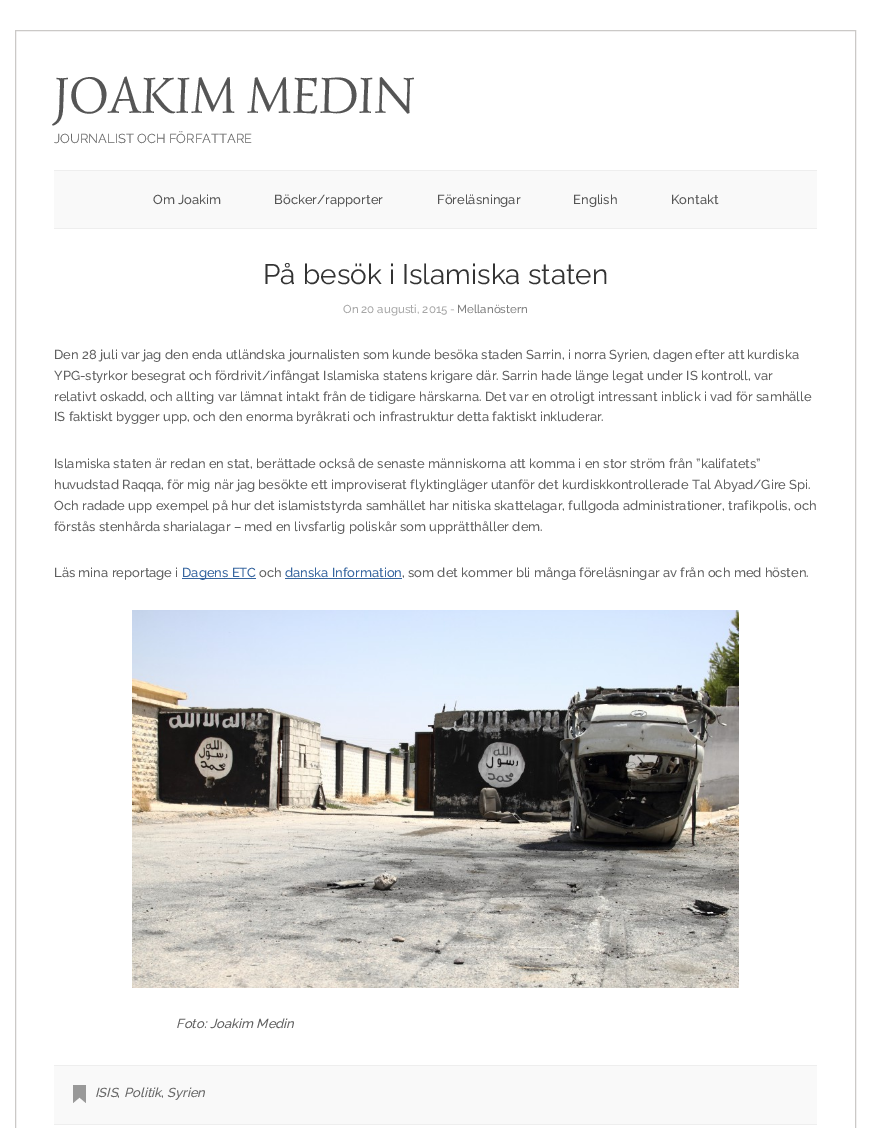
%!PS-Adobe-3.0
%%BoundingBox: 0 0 871 1128
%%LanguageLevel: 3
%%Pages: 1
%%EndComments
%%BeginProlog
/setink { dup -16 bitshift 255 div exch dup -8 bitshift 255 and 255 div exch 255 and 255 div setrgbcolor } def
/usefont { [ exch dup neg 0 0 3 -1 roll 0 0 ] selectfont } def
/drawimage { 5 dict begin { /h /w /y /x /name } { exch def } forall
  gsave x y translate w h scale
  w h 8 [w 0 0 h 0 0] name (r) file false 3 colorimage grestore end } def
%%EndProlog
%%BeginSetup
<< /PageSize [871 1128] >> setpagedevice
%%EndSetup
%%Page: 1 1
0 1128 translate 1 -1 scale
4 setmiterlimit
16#FFFFFF setink
0 0 871 1128 rectfill
16#CBC9C7 setink
15.5 30.5 840 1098 rectstroke
/Simonetta-Regular 52 usefont
16#555555 setink
54 113 moveto (JOAKIM MEDIN) show
/Raleway-Regular 13 usefont
16#666666 setink
54 143 moveto (JOURNALIST OCH FÖRFATTARE) show
[
    [54 171 763 57 16#F9F9F9]
    [54 170 763 1 16#EEEEEE]
    [54 228 763 1 16#EEEEEE]
] { aload pop setink rectfill } forall
/Raleway-Medium 13 usefont
16#555555 setink
[
    [(Om Joakim) 153 204]
    [(Böcker/rapporter) 274 204]
    [(Föreläsningar) 437 204]
    [(English) 573 204]
    [(Kontakt) 671 204]
] { aload pop moveto show } forall
/Raleway-Regular 28 usefont
16#333333 setink
263 284 moveto (På besök i Islamiska staten) show
/Raleway-Medium 11.5 usefont
16#A6A6A6 setink
343 313 moveto (On 20 augusti, 2015 -) show
16#808080 setink
457 313 moveto (Mellanöstern) show
/Raleway-Medium 13 usefont
16#606060 setink
[
    [(Den 28 juli var jag den enda utländska journalisten som kunde besöka staden Sarrin, i norra Syrien, dagen efter att kurdiska) 54 359]
    [(YPG-styrkor besegrat och fördrivit/infångat Islamiska statens krigare där. Sarrin hade länge legat under IS kontroll, var) 54 380]
    [(relativt oskadd, och allting var lämnat intakt från de tidigare härskarna. Det var en otroligt intressant inblick i vad för samhälle) 54 401]
    [(IS faktiskt bygger upp, och den enorma byråkrati och infrastruktur detta faktiskt inkluderar.) 54 421]
    [(Islamiska staten är redan en stat, berättade också de senaste människorna att komma i en stor ström från ”kalifatets”) 54 468]
    [(huvudstad Raqqa, för mig när jag besökte ett improviserat flyktingläger utanför det kurdiskkontrollerade Tal Abyad/Gire Spi.) 54 489]
    [(Och radade upp exempel på hur det islamiststyrda samhället har nitiska skattelagar, fullgoda administrationer, trafikpolis, och) 54 510]
    [(förstås stenhårda sharialagar – med en livsfarlig poliskår som upprätthåller dem.) 54 531]
    [(Läs mina reportage i) 54 577]
] { aload pop moveto show } forall
16#36659F setink
182 578 74 1 rectfill
182 577 moveto (Dagens ETC) show
16#606060 setink
259 577 moveto (och) show
16#36659F setink
285 577 moveto (danska Information) show
285 578 117 1 rectfill
16#606060 setink
402 577 moveto (, som det kommer bli många föreläsningar av från och med hösten.) show
(img1.raw) 132 610 607 378 drawimage
/Raleway-MediumItalic 13 usefont
176 1028 moveto (Foto: Joakim Medin) show
[
    [54 1066 763 58 16#F9F9F9]
    [54 1065 763 1 16#EEEEEE]
    [54 1124 763 1 16#EEEEEE]
] { aload pop setink rectfill } forall
16#999999 setink
73 1085 moveto 73 1103 lineto 79.5 1097.5 lineto 86 1103 lineto 86 1085 lineto closepath fill
16#666666 setink
[
    [(ISIS) 95 1097]
    [(Politik) 124 1097]
    [(Syrien) 167 1097]
] { aload pop moveto show } forall
/Raleway-Medium 13 usefont
117 1097 moveto (,) show
161 1097 moveto (,) show
showpage
%%EOF
